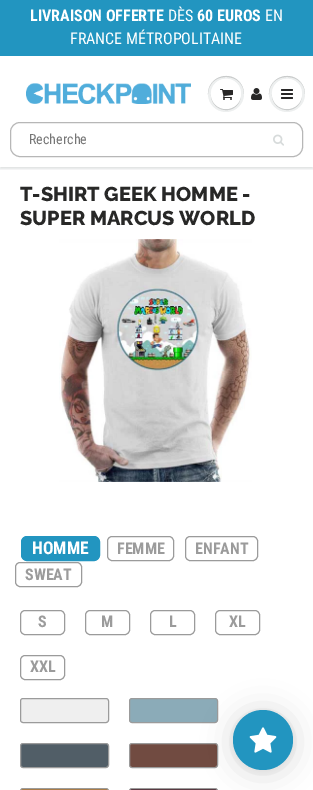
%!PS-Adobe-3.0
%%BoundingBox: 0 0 313 790
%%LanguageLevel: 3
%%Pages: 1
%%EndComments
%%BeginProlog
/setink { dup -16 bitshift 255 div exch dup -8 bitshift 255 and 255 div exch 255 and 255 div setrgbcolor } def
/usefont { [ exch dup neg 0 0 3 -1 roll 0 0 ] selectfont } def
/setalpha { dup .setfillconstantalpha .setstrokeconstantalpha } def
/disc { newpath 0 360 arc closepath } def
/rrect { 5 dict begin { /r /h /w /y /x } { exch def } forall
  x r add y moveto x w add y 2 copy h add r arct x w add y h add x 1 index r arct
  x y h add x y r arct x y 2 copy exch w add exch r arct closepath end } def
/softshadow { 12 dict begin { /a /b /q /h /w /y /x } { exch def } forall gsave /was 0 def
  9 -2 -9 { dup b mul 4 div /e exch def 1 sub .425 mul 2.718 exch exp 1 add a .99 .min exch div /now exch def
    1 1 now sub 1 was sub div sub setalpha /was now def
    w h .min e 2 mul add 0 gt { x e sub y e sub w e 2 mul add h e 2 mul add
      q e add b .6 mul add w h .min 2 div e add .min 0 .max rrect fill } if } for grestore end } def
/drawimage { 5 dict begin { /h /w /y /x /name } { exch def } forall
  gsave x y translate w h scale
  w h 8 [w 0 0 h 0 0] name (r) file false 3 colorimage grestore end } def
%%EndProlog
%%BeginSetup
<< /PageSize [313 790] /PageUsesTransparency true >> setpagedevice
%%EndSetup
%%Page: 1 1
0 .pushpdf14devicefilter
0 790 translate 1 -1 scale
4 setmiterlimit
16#FFFFFF setink
0 0 313 790 rectfill
16#2295C0 setink
0 0 313 56 rectfill
/RobotoCondensed-Bold 16 usefont
16#FFFFFF setink
30 21 moveto (LIVRAISON OFFERTE) show
/RobotoCondensed-Regular 16 usefont
168 21 moveto (DÈS) show
/RobotoCondensed-Bold 16 usefont
197 21 moveto (60 EUROS) show
/RobotoCondensed-Regular 16 usefont
265 21 moveto (EN) show
70 44 moveto (FRANCE MÉTROPOLITAINE) show
(img1.raw) 26 83 165 21 drawimage
16#EDEFEF setink
226 94 18 disc fill
16#C9CBCB setink
226 77 moveto 238 77 244 85.5 244 94.5 curveto 244 91 243 87 241 84 curveto 231 69 207.5 76.5 208 94.5 curveto 208 85.5 214 77 226 77 curveto closepath fill
211 94.5 moveto 210.5 109.5 230 116 238.5 103.5 curveto 240 101 241 97.5 241 94.5 curveto 240.5 113.5 211.5 113.5 211 94.5 curveto closepath fill
16#FFFFFF setink
226 94 15 disc fill
226 80 moveto 236 80 241 87 241 94.5 curveto 241 91.5 240 88 238.5 85.5 curveto 230 73 210.5 79.5 211 94.5 curveto 211 87 216 80 226 80 curveto closepath fill
(img2.raw) 220 89 13 11 drawimage
(img3.raw) 251 88 11 12 drawimage
16#EDEFEF setink
287 94 18 disc fill
16#C9CBCB setink
287 77 moveto 299 77 305 85.5 305 94.5 curveto 305 91 304 87 302 84 curveto 292 69 268.5 76.5 269 94.5 curveto 269 85.5 275 77 287 77 curveto closepath fill
272 94.5 moveto 271.5 109.5 291 116 299.5 103.5 curveto 301 101 302 97.5 302 94.5 curveto 301.5 113.5 272.5 113.5 272 94.5 curveto closepath fill
16#FFFFFF setink
287 94 15 disc fill
287 80 moveto 297 80 302 87 302 94.5 curveto 302 91.5 301 88 299.5 85.5 curveto 291 73 271.5 79.5 272 94.5 curveto 272 87 277 80 287 80 curveto closepath fill
(img4.raw) 281 89 12 10 drawimage
gsave
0 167 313 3 rectclip
16#0B191C setink
0 122 313 47 0 1 0.12 softshadow
grestore
16#B7B7B7 setink
10.5 122.5 292 34 9.5 rrect stroke
/RobotoCondensed-Regular 14 usefont
16#757575 setink
29 144 moveto (Recherche) show
(img5.raw) 273 134 11 12 drawimage
/Raleway-ExtraBold 20 usefont
16#282827 setink
20 201 moveto (T-SHIRT GEEK HOMME -) show
20 225 moveto (SUPER MARCUS WORLD) show
(img6.raw) 59 239 193 243 drawimage
16#2295C0 setink
21.5 536.5 78 24 5.5 rrect gsave fill grestore
stroke
/RobotoCondensed-Bold 17.5 usefont
16#FFFFFF setink
32 554 moveto (HOMME) show
16#9B9B9B setink
107.5 536.5 66 24 4.5 rrect stroke
/RobotoCondensed-Bold 16 usefont
117 554 moveto (FEMME) show
185.5 536.5 72 24 4.5 rrect stroke
195 554 moveto (ENFANT) show
15.5 562.5 66 24 4.5 rrect stroke
25 580 moveto (SWEAT) show
20.5 610.5 44 24 4.5 rrect stroke
38 627 moveto (S) show
85.5 610.5 44 24 4.5 rrect stroke
101 627 moveto (M) show
150.5 610.5 44 24 4.5 rrect stroke
169 627 moveto (L) show
215.5 610.5 44 24 4.5 rrect stroke
229 627 moveto (XL) show
20.5 655.5 44 24 4.5 rrect stroke
30 672 moveto (XXL) show
16#EFEFEF setink
20.5 698.5 88 24 2.5 rrect gsave fill grestore
16#9B9B9B setink
stroke
16#8BABB8 setink
129.5 698.5 88 24 2.5 rrect gsave fill grestore
16#9B9B9B setink
stroke
16#515E67 setink
20.5 743.5 88 24 2.5 rrect gsave fill grestore
16#9B9B9B setink
stroke
16#714B41 setink
129.5 743.5 88 24 2.5 rrect gsave fill grestore
16#9B9B9B setink
stroke
16#AF7128 setink
20.5 788.5 88 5 2.5 rrect gsave fill grestore
16#9B9B9B setink
stroke
16#421722 setink
129.5 788.5 88 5 2.5 rrect gsave fill grestore
16#9B9B9B setink
stroke
16#000000 setink
233 712 60 60 30 15 0.15 softshadow
233 711 60 60 30 3 0.05 softshadow
16#2295C0 setink
263 740 30 disc fill
(img7.raw) 249 727 28 26 drawimage
.poppdf14devicefilter showpage
%%EOF
